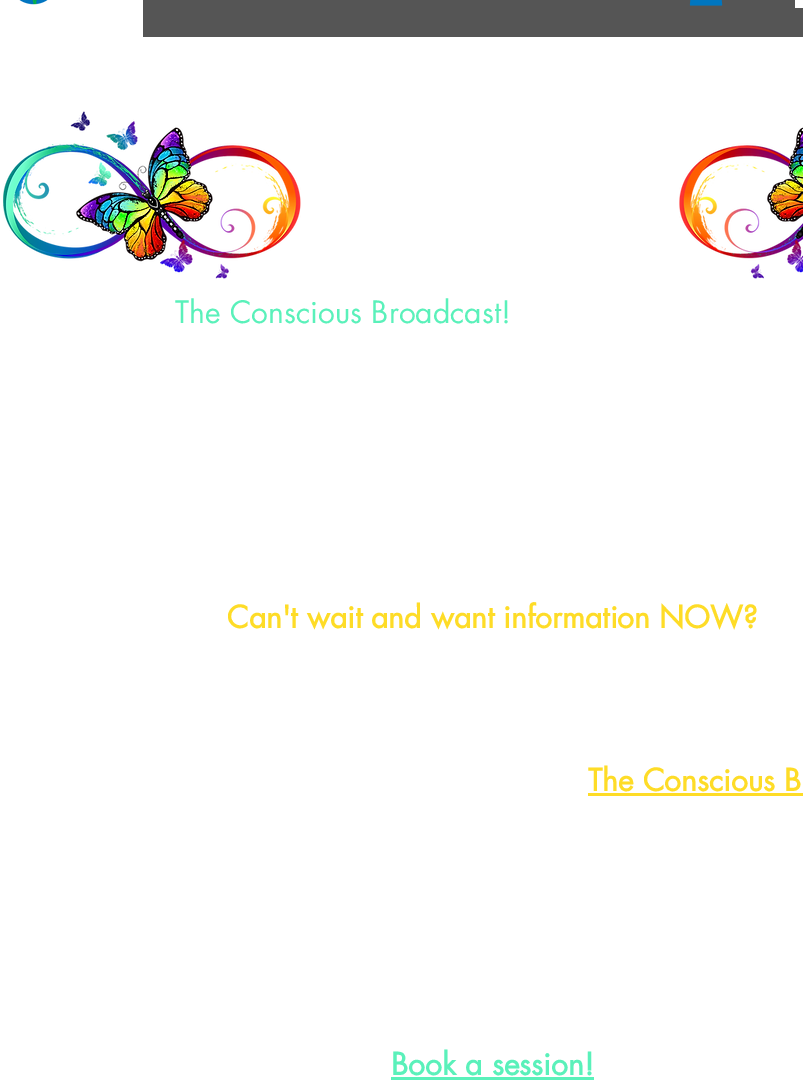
%!PS-Adobe-3.0
%%BoundingBox: 0 0 803 1081
%%LanguageLevel: 3
%%Pages: 1
%%EndComments
%%BeginProlog
/setink { dup -16 bitshift 255 div exch dup -8 bitshift 255 and 255 div exch 255 and 255 div setrgbcolor } def
/usefont { [ exch dup neg 0 0 3 -1 roll 0 0 ] selectfont } def
/drawimage { 5 dict begin { /h /w /y /x /name } { exch def } forall
  gsave x y translate w h scale
  w h 8 [w 0 0 h 0 0] name (r) file false 3 colorimage grestore end } def
%%EndProlog
%%BeginSetup
<< /PageSize [803 1081] >> setpagedevice
%%EndSetup
%%Page: 1 1
0 1081 translate 1 -1 scale
4 setmiterlimit
16#FFFFFF setink
0 0 803 1081 rectfill
(img1.raw) 19 0 29 5 drawimage
16#555555 setink
143 0 660 37 rectfill
(img2.raw) 689 0 34 6 drawimage
16#FFFFFF setink
795 0 8 8 rectfill
(img3.raw) 3 111 298 168 drawimage
(img4.raw) 679 127 124 152 drawimage
/futura-Regular 30 usefont
16#5AF1BA setink
175 323 moveto (The Conscious Broadcast!) show
/futura-Bold 30 usefont
16#FEDC27 setink
227 628 moveto (Can't wait and want information NOW?) show
588 791 moveto (The Conscious B) show
588 793 215 3 rectfill
16#5AF1BA setink
391 1075 moveto (Book a session!) show
391 1077 203 3 rectfill
showpage
%%EOF
